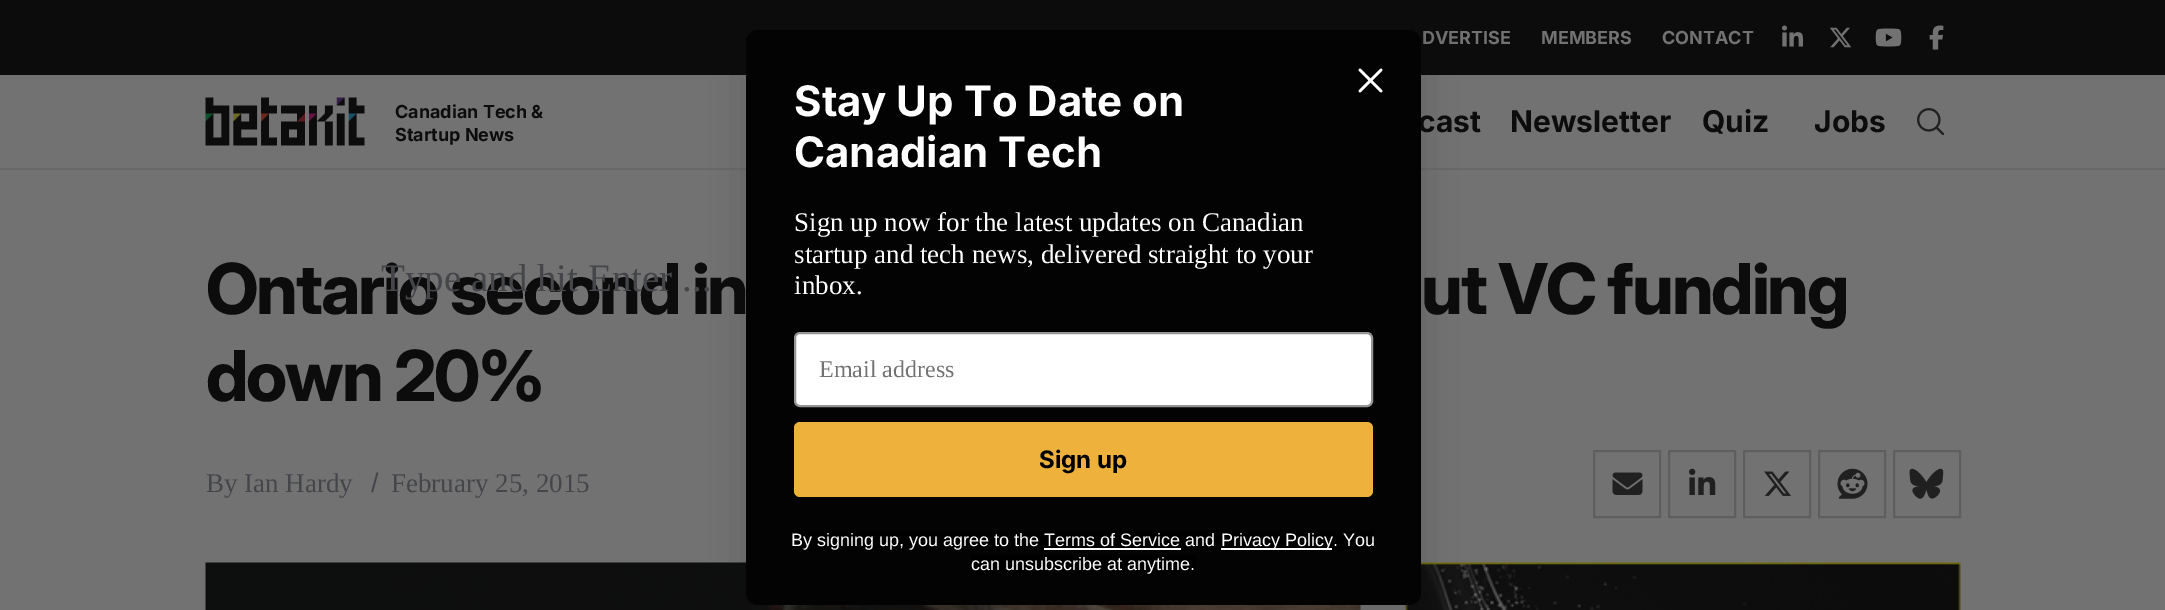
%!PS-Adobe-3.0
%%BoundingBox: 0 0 2165 610
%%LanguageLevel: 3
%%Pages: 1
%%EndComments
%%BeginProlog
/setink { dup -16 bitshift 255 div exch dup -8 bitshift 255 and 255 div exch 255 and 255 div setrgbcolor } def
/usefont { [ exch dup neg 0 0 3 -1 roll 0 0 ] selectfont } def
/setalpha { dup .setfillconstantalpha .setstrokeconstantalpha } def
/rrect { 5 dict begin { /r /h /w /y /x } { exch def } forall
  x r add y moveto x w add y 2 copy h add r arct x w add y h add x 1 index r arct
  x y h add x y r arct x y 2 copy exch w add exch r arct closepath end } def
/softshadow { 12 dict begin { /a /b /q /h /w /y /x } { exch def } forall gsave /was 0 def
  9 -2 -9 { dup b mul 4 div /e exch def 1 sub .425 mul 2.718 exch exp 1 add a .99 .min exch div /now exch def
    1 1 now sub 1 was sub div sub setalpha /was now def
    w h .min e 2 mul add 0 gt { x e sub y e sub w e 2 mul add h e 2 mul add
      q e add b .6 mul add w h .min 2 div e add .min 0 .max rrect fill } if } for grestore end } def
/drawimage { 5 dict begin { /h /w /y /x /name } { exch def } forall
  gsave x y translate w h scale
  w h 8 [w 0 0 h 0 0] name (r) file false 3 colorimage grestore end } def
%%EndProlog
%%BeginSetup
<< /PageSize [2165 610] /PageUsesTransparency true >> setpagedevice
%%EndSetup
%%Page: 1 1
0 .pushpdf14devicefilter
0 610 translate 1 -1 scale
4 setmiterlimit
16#727272 setink
0 0 2165 610 rectfill
16#0C0C0C setink
0 0 2165 75 rectfill
/Inter-Bold 18 usefont
16#727272 setink
[
    [(DVERTISE) 1422 44]
    [(MEMBERS) 1541 44]
    [(CONTACT) 1662 44]
] { aload pop moveto show } forall
(img1.raw) 1782 25 21 22 drawimage
(img2.raw) 1829 27 23 21 drawimage
(img3.raw) 1875 28 27 19 drawimage
(img4.raw) 1929 25 15 25 drawimage
16#696969 setink
0 168 2165 2 rectfill
(img12.raw) 205 562 1156 48 drawimage
(img13.raw) 1405 562 556 48 drawimage
16#000000 setink
746 30 675 575 12 22.5 0.15 softshadow
/Inter-Bold 30 usefont
16#0C0C0C setink
1418 132 moveto (cast) show
16#030303 setink
746 30 675 575 12 rrect fill
16#FFFFFF setink
2.6 setlinewidth
1 setlinecap
1 setlinejoin
1360 70 moveto 1381 91 lineto 1360 91 moveto 1381 70 lineto closepath stroke
/Inter-Bold 42 usefont
794 116 moveto (Stay Up To Date on) show
794 167 moveto (Canadian Tech) show
/LiberationSerif-Regular 27 usefont
[
    [(Sign up now for the latest updates on Canadian) 794 231]
    [(startup and tech news, delivered straight to your) 794 263]
    [(inbox.) 794 294]
] { aload pop moveto show } forall
795 333 577 73 5 rrect gsave fill grestore
16#949596 setink
2 setlinewidth
0 setlinecap
0 setlinejoin
stroke
/LiberationSerif-Regular 24 usefont
16#727272 setink
819 377 moveto (Email address) show
16#EDB13C setink
794 422 579 75 6 rrect fill
/Inter-Bold 24 usefont
16#000000 setink
1039 468 moveto (Sign up) show
792 530 582 21 rectfill
/LiberationSans-Regular 18 usefont
16#FFFFFF setink
791 546 moveto (By signing up, you agree to the Terms of Service and) show
1044 548 137 2 rectfill
1221 548 111 2 rectfill
1221 546 moveto (Privacy Policy. You) show
16#000000 setink
971 554 225 21 rectfill
16#FFFFFF setink
971 570 moveto (can unsubscribe at anytime.) show
(img5.raw) 205 97 160 49 drawimage
/Inter-Bold 18 usefont
16#0C0C0C setink
395 118 moveto (Canadian Tech &) show
395 141 moveto (Startup News) show
/Inter-Bold 30 usefont
[
    [(Newsletter) 1510 132]
    [(Quiz) 1702 132]
    [(Jobs) 1814 132]
] { aload pop moveto show } forall
(img6.raw) 1917 108 27 27 drawimage
/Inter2-Bold 70.25 usefont
206 314 moveto -2.1 0 (Ontario second in) ashow
1421 314 moveto -2.1 0 (ut VC funding) ashow
206 401 moveto -2.1 0 (down 20%) ashow
/LiberationSerif-Regular 27 usefont
16#44464A setink
206 492 moveto (By Ian Hardy) show
/LiberationSans-Regular 27 usefont
371 492 moveto (/) show
/LiberationSerif-Regular 27 usefont
391 492 moveto (February 25, 2015) show
16#5E5E5E setink
1594 451 66 66 rectstroke
(img7.raw) 1612 472 31 23 drawimage
1669 451 66 66 rectstroke
(img8.raw) 1689 468 27 27 drawimage
1744 451 66 66 rectstroke
(img9.raw) 1764 471 27 25 drawimage
1819 451 66 66 rectstroke
(img10.raw) 1837 468 31 31 drawimage
1894 451 66 66 rectstroke
(img11.raw) 1909 468 35 31 drawimage
/LiberationSerif-Regular 39 usefont
16#44464A setink
381 291 moveto (Type and hit Enter ...) show
.poppdf14devicefilter showpage
%%EOF
